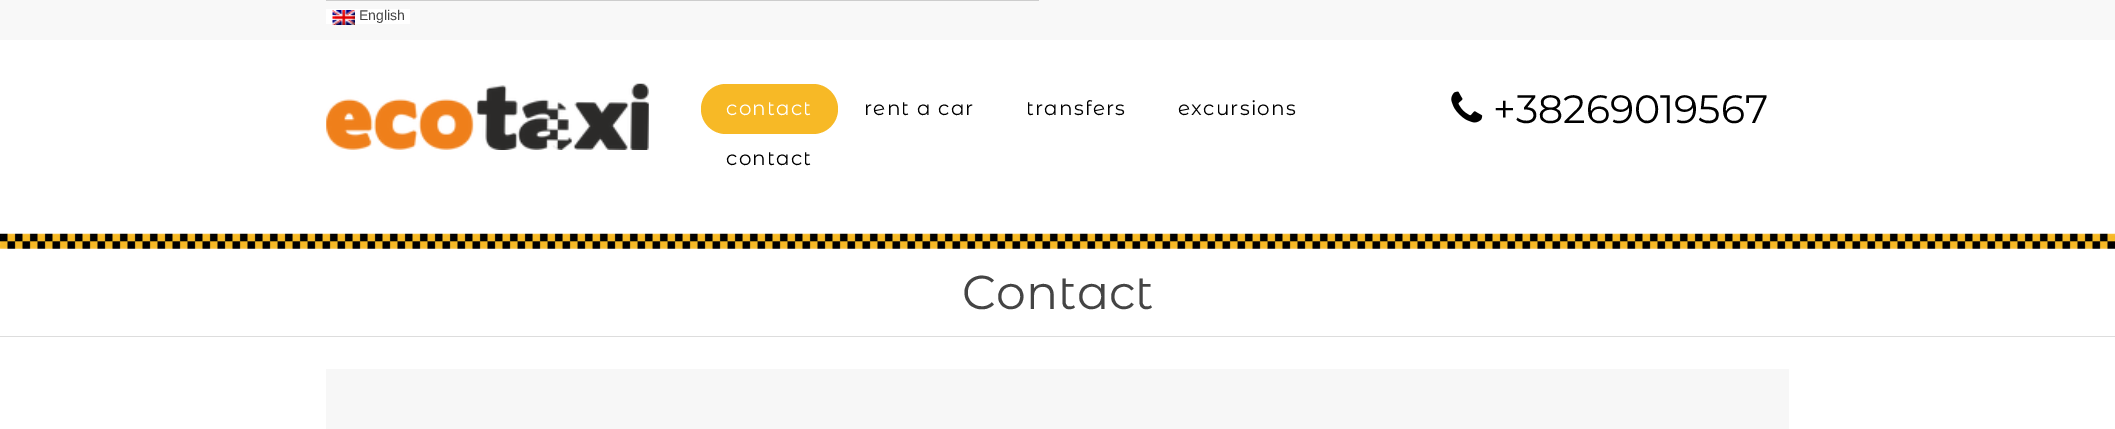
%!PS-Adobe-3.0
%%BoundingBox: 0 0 2115 429
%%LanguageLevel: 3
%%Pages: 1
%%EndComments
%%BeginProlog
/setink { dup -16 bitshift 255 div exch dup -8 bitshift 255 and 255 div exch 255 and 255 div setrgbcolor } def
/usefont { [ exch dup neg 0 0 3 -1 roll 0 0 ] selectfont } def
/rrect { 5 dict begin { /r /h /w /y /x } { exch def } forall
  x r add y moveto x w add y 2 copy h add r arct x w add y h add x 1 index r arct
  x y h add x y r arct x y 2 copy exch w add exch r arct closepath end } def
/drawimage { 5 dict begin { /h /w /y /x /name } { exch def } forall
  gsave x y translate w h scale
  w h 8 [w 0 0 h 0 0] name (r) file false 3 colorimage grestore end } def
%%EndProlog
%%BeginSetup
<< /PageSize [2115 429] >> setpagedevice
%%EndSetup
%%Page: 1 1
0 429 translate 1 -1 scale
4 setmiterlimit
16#FFFFFF setink
0 0 2115 429 rectfill
[
    [0 0 2115 40 16#F8F8F8]
    [326 0 713 1 16#CDCDCD]
    [326 9 84 15 16#FFFFFF]
] { aload pop setink rectfill } forall
(img1.raw) 332 10 23 15 drawimage
/LiberationSans-Regular 14 usefont
16#444444 setink
359 20 moveto (English) show
(img2.raw) 326 83 323 67 drawimage
16#F7B926 setink
701 84 137 50 25 rrect fill
/MontserratAlternates-Regular 20 usefont
16#FFFFFF setink
726 115 moveto 1.25 0 (contact) ashow
16#000000 setink
864 115 moveto 1.25 0 (rent a car) ashow
1026 115 moveto 1.25 0 (transfers) ashow
1178 115 moveto 1.25 0 (excursions) ashow
726 165 moveto 1.25 0 (contact) ashow
(img3.raw) 1451 91 32 32 drawimage
/MontserratAlternates-Regular 39.5 usefont
1493 123 moveto (+38269019567) show
(img4.raw) 0 233 2115 16 drawimage
16#DDDDDD setink
0 336 2115 1 rectfill
/MontserratAlternates-Regular 47.5 usefont
16#444444 setink
962 309 moveto (Contact) show
16#F7F7F7 setink
326 369 1463 60 rectfill
showpage
%%EOF
